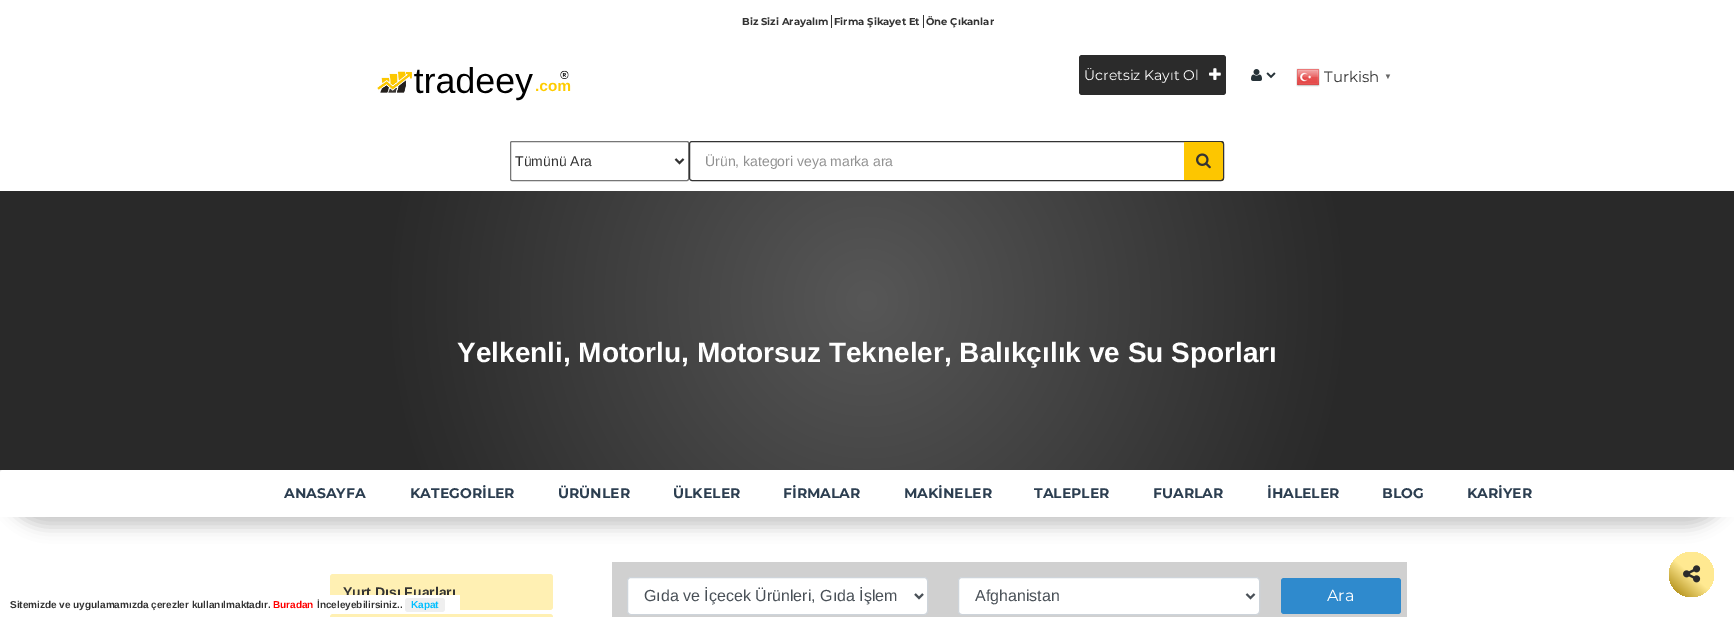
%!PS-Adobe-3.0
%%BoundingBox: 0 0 1734 617
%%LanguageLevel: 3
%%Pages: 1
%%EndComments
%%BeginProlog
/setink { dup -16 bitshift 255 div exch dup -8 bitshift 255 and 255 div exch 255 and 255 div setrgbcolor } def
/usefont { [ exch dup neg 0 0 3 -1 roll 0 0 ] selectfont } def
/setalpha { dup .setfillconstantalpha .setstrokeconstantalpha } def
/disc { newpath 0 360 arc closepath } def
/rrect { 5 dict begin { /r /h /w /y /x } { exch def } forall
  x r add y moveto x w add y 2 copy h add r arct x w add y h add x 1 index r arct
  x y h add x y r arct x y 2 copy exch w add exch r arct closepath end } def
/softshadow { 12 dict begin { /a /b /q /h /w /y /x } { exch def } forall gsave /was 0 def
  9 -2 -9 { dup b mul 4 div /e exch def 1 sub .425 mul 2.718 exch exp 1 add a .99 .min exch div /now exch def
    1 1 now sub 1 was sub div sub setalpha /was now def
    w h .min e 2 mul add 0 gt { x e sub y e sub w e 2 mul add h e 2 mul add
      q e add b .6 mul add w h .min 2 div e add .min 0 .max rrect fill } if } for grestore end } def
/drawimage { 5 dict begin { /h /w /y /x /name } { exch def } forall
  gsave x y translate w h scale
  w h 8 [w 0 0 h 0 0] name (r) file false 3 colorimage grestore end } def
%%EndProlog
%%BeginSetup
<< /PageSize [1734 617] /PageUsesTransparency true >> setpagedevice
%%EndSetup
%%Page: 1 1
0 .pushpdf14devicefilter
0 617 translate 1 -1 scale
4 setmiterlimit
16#FFFFFF setink
0 0 1734 617 rectfill
/Montserrat-Bold 10 usefont
16#333333 setink
742 25 moveto (Biz Sizi Arayalım) show
831 15 1 13 rectfill
834 25 moveto (Firma Şikayet Et) show
923 15 1 13 rectfill
926 25 moveto (Öne Çıkanlar) show
(img1.raw) 377 67 194 34 drawimage
16#2B2B2B setink
1079 55 147 40 3 rrect fill
/Montserrat-Regular 14 usefont
16#FFFFFF setink
1084 80 moveto (Ücretsiz Kayıt Ol) show
(img2.raw) 1209 68 12 12 drawimage
(img3.raw) 1251 69 11 12 drawimage
(img4.raw) 1266 72 10 7 drawimage
(img5.raw) 1296 68 24 19 drawimage
/Montserrat-Regular 15 usefont
16#333333 setink
1324 82 moveto (Turkish) show
/LiberationSans-Bold 8 usefont
16#666666 setink
1384 79 moveto (▼) show
16#767676 setink
510.5 141.5 178 39 1.5 rrect stroke
16#333333 setink
2 setlinewidth
675.5 159 moveto 679.5 163 lineto 683.5 159 lineto stroke
/LiberationSans-Regular 14 usefont
515 166 moveto (Tümünü Ara) show
1 setlinewidth
689.5 141.5 534 39 2.5 rrect stroke
16#919191 setink
705 166 moveto (Ürün, kategori veya marka ara) show
16#FDC600 setink
1184 141 moveto 1221 141 lineto 1222.5 141 1224 142.5 1224 144 curveto 1224 178 lineto 1224 179.5 1222.5 181 1221 181 curveto 1184 181 lineto closepath fill
16#333333 setink
1184 141 moveto 1221 141 lineto 1223 141 1224 142 1224 144 curveto 1224 178 lineto 1224 180 1223 181 1221 181 curveto 1184 181 lineto closepath 1184 142 moveto 1221 142 lineto 1222 142 1223 143 1223 144 curveto 1223 178 lineto 1223 179 1222 180 1221 180 curveto 1184 180 lineto closepath eofill
(img6.raw) 1196 153 15 16 drawimage
16#000000 setink
0 423 1734 104 52 7.5 0.2 softshadow
gsave 0 191 moveto 1734 191 lineto 1734 470 lineto 0 470 lineto closepath clip newpath 867 301 translate 883 883 scale
<< /ShadingType 3 /ColorSpace /DeviceRGB /Coords [0 0 0 0 0 1] /Extend [true true] /Function << /FunctionType 3 /Domain [0 1] /Functions [<< /FunctionType 2 /Domain [0 1] /C0 [0.341 0.341 0.341] /C1 [0.161 0.161 0.161] /N 1 >> << /FunctionType 2 /Domain [0 1] /C0 [0.161 0.161 0.161] /C1 [0.161 0.161 0.161] /N 1 >>] /Bounds [0.55] /Encode [0 1 0 1] >> >> shfill grestore
/LiberationSans-Bold 28 usefont
16#FFFFFF setink
457 362 moveto (Yelkenli, Motorlu, Motorsuz Tekneler, Balıkçılık ve Su Sporları) show
3 470 moveto 1731 470 lineto 1732.5 470 1734 471.5 1734 473 curveto 1734 517 lineto 0 517 lineto 0 473 lineto 0 471.5 1.5 470 3 470 curveto closepath fill
/Montserrat-Bold 14 usefont
16#2C3E50 setink
[
    [(ANASAYFA) 284 498]
    [(KATEGORİLER) 410 498]
    [(ÜRÜNLER) 558 498]
    [(ÜLKELER) 673 498]
    [(FİRMALAR) 783 498]
    [(MAKİNELER) 904 498]
    [(TALEPLER) 1034 498]
    [(FUARLAR) 1153 498]
    [(İHALELER) 1267 498]
    [(BLOG) 1382 498]
    [(KARİYER) 1467 498]
] { aload pop moveto show } forall
16#FFF0B3 setink
330 574 223 36 3 rrect fill
/LiberationSans-Bold 14 usefont
16#333333 setink
343 597 moveto (Yurt Dışı Fuarları) show
16#FFFFFF setink
330 595 130 15 rectfill
/LiberationSans-Bold 10 usefont
16#333333 setink
10 608 moveto (Sitemizde ve uygulamamızda çerezler kullanılmaktadır.) show
16#FF0000 setink
273 608 moveto (Buradan) show
16#333333 setink
317 608 moveto (İnceleyebilirsiniz..) show
16#EFEFEF setink
405 598 40 14 3 rrect fill
16#00BFFF setink
411 608 moveto (Kapat) show
16#FFF0B3 setink
330 614 223 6 3 rrect fill
16#D0D0D0 setink
612 562 795 55 rectfill
16#FFFFFF setink
627.5 577.5 300 37 3.5 rrect gsave fill grestore
16#CED4DA setink
stroke
16#495057 setink
2 setlinewidth
915 594 moveto 919 598 lineto 923 594 lineto stroke
/LiberationSans-Regular 16 usefont
644 601 moveto (Gıda ve İçecek Ürünleri, Gıda İşlem) show
16#FFFFFF setink
958.5 577.5 301 37 3.5 rrect gsave fill grestore
16#CED4DA setink
1 setlinewidth
stroke
16#495057 setink
2 setlinewidth
1246.5 594 moveto 1250.5 598 lineto 1254.5 594 lineto stroke
975 601 moveto (Afghanistan) show
16#2F8ACD setink
1281 578 120 36 3 rrect fill
/Montserrat-Regular 16 usefont
16#FFFFFF setink
1327 601 moveto (Ara) show
gsave 1691.5 574.5 22.5 disc clip newpath
<< /ShadingType 2 /ColorSpace /DeviceRGB /Coords [1712 551 1671 598] /Extend [true true] /Function << /FunctionType 3 /Domain [0 1] /Functions [<< /FunctionType 2 /Domain [0 1] /C0 [1 0.914 0.569] /C1 [1 0.914 0.569] /N 1 >> << /FunctionType 2 /Domain [0 1] /C0 [1 0.914 0.569] /C1 [0.635 0.49 0] /N 1 >>] /Bounds [0.5] /Encode [0 1 0 1] >> >> shfill grestore
(img7.raw) 1683 565 18 18 drawimage
.poppdf14devicefilter showpage
%%EOF
